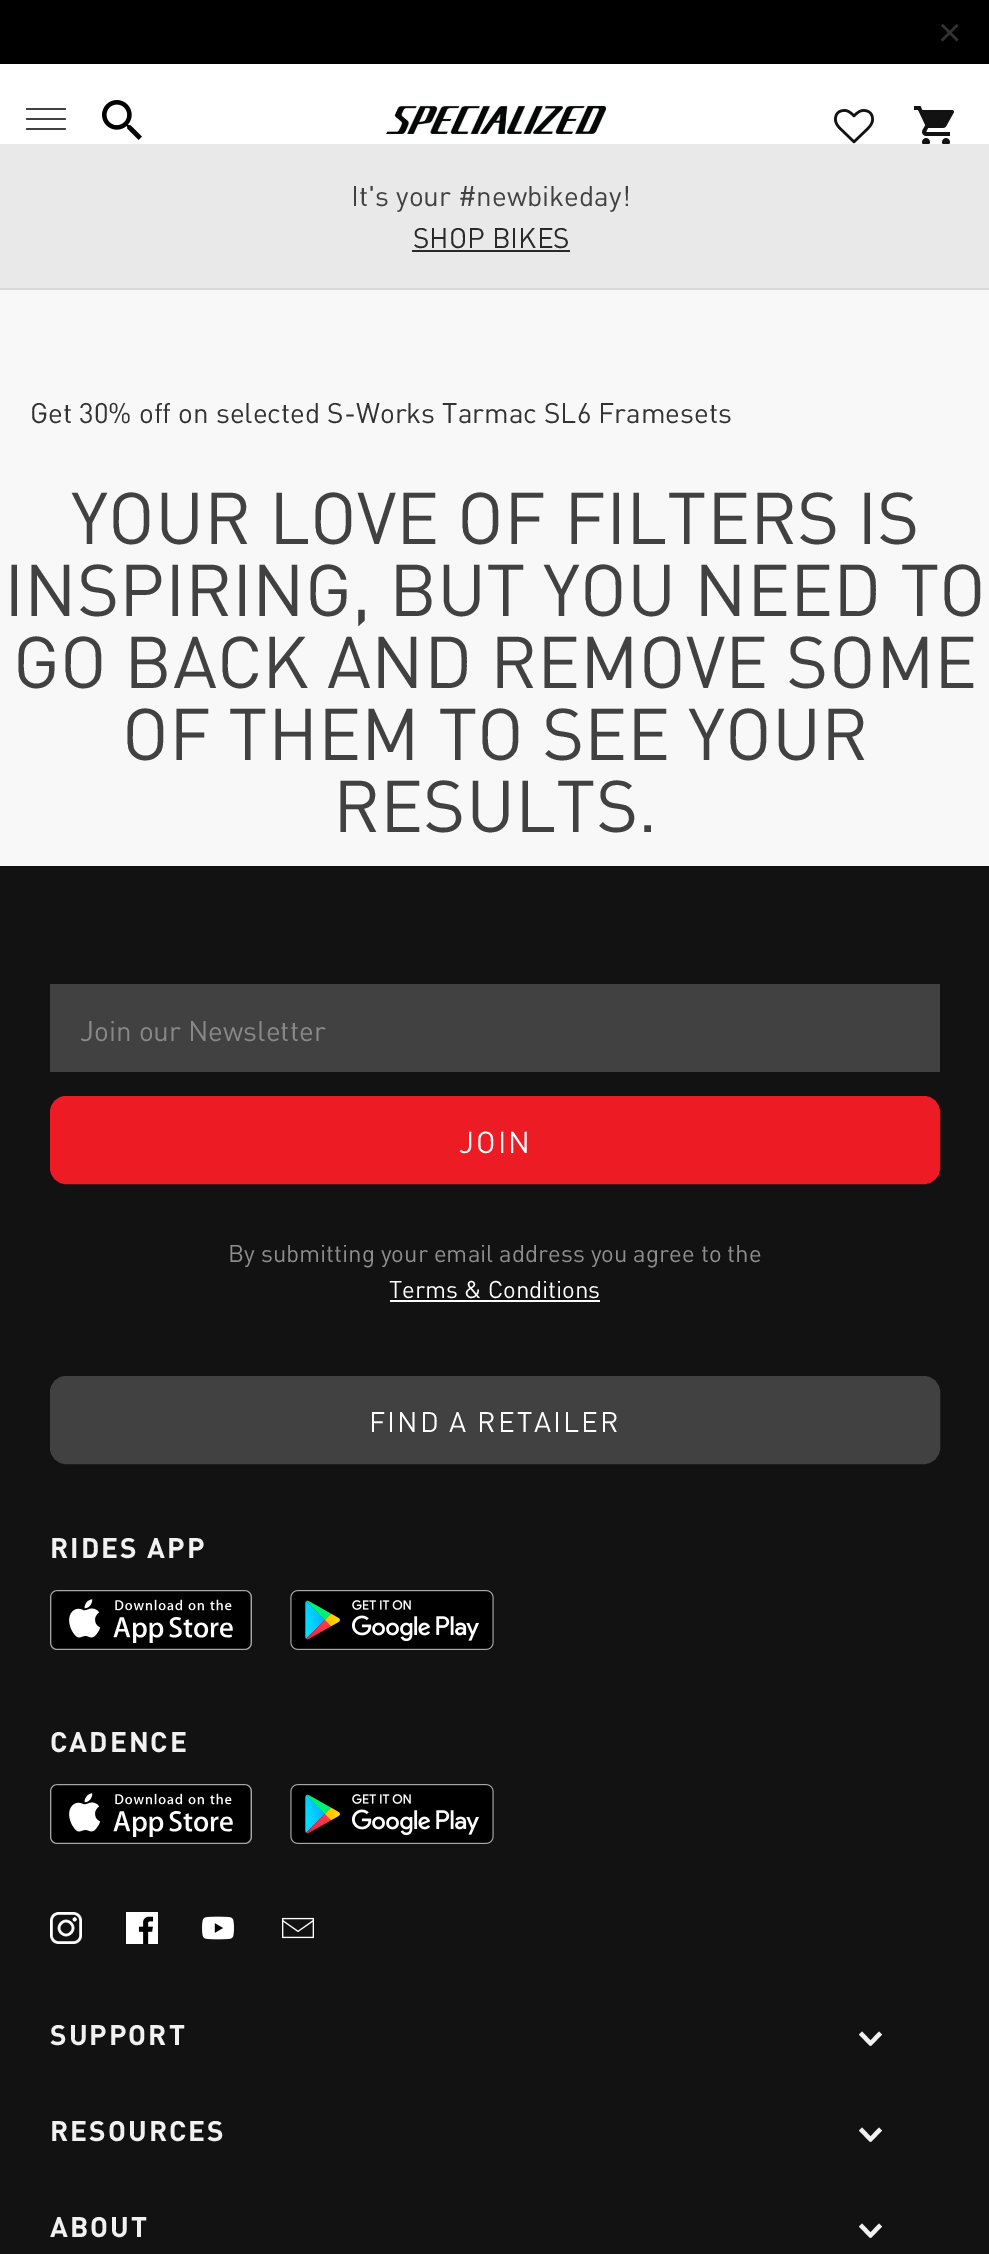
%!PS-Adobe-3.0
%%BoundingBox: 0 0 989 2254
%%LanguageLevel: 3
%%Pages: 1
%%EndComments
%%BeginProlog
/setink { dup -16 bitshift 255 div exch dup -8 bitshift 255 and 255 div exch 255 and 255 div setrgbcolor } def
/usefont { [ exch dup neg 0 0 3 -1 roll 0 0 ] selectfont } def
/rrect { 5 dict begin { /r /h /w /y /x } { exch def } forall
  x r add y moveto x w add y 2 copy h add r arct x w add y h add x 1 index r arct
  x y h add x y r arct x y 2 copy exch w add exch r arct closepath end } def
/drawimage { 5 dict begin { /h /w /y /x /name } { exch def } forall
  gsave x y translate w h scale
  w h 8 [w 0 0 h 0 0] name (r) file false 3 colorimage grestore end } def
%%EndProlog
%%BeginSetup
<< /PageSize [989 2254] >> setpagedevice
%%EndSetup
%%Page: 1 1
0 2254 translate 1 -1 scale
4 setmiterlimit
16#F8F8F8 setink
0 0 989 2254 rectfill
16#000000 setink
0 0 989 64 rectfill
/LiberationSans-Regular 40 usefont
16#333333 setink
938 46 moveto 4 0 (×) ashow
16#FFFFFF setink
0 64 989 80 rectfill
16#414141 setink
26 108 40 2 1 rrect fill
26 118 40 2 1 rrect fill
26 128 40 2 1 rrect fill
(img1.raw) 102 100 40 40 drawimage
(img2.raw) 385 105 221 29 drawimage
(img3.raw) 834 109 40 35 drawimage
(img4.raw) 914 106 40 38 drawimage
16#E9E9E9 setink
0 144 989 144 rectfill
16#D9D9D9 setink
0 288 989 2 rectfill
/DIN-Regular 28 usefont
16#414141 setink
351 206 moveto (It's your #newbikeday!) show
16#292929 setink
413 248 moveto (SHOP BIKES) show
412 250 158 2 rectfill
16#333333 setink
30 423 moveto (Get 30% off on selected S-Works Tarmac SL6 Framesets) show
/DIN-Regular 72 usefont
16#414141 setink
[
    [(YOUR LOVE OF FILTERS IS) 71 544]
    [(INSPIRING, BUT YOU NEED TO) 4 616]
    [(GO BACK AND REMOVE SOME) 13 688]
    [(OF THEM TO SEE YOUR) 122 760]
    [(RESULTS.) 333 832]
] { aload pop moveto show } forall
16#121212 setink
0 866 989 1388 rectfill
16#414141 setink
50 984 890 88 rectfill
/DIN-Regular 28 usefont
16#888888 setink
80 1041 moveto (Join our Newsletter) show
16#ED1C24 setink
51 1097 888 86 15 rrect gsave fill grestore
2 setlinewidth
stroke
/DIN-Regular 30 usefont
16#FFFFFF setink
459 1153 moveto 2 0 (JOIN) ashow
/DIN-Regular 24 usefont
16#8E8E8E setink
228 1262 moveto (By submitting your email address you agree to the) show
16#FFFFFF setink
389 1298 moveto (Terms & Conditions) show
390 1300 210 2 rectfill
16#414141 setink
51 1377 888 86 15 rrect gsave fill grestore
stroke
/DIN-Regular 28 usefont
16#FFFFFF setink
369 1432 moveto 2 0 (FIND A RETAILER) ashow
/DIN-Bold 28 usefont
16#F1F1F1 setink
50 1558 moveto 2 0 (RIDES APP) ashow
(img5.raw) 50 1590 202 60 drawimage
(img6.raw) 290 1590 204 60 drawimage
50 1752 moveto 2 0 (CADENCE) ashow
(img7.raw) 50 1784 202 60 drawimage
(img6.raw) 290 1784 204 60 drawimage
(img8.raw) 50 1912 32 32 drawimage
(img9.raw) 126 1912 32 32 drawimage
(img10.raw) 202 1916 32 24 drawimage
(img11.raw) 282 1917 32 22 drawimage
50 2045 moveto 2 0 (SUPPORT) ashow
859 2034.5 moveto 862 2031.5 lineto 873 2043 lineto 870 2046 lineto closepath fill
879 2031.5 moveto 882 2034.5 lineto 871 2046 lineto 868 2043 lineto closepath fill
50 2141 moveto 2 0 (RESOURCES) ashow
859 2130.5 moveto 862 2127.5 lineto 873 2139 lineto 870 2142 lineto closepath fill
879 2127.5 moveto 882 2130.5 lineto 871 2142 lineto 868 2139 lineto closepath fill
50 2237 moveto 2 0 (ABOUT) ashow
859 2226.5 moveto 862 2223.5 lineto 873 2235 lineto 870 2238 lineto closepath fill
879 2223.5 moveto 882 2226.5 lineto 871 2238 lineto 868 2235 lineto closepath fill
showpage
%%EOF
